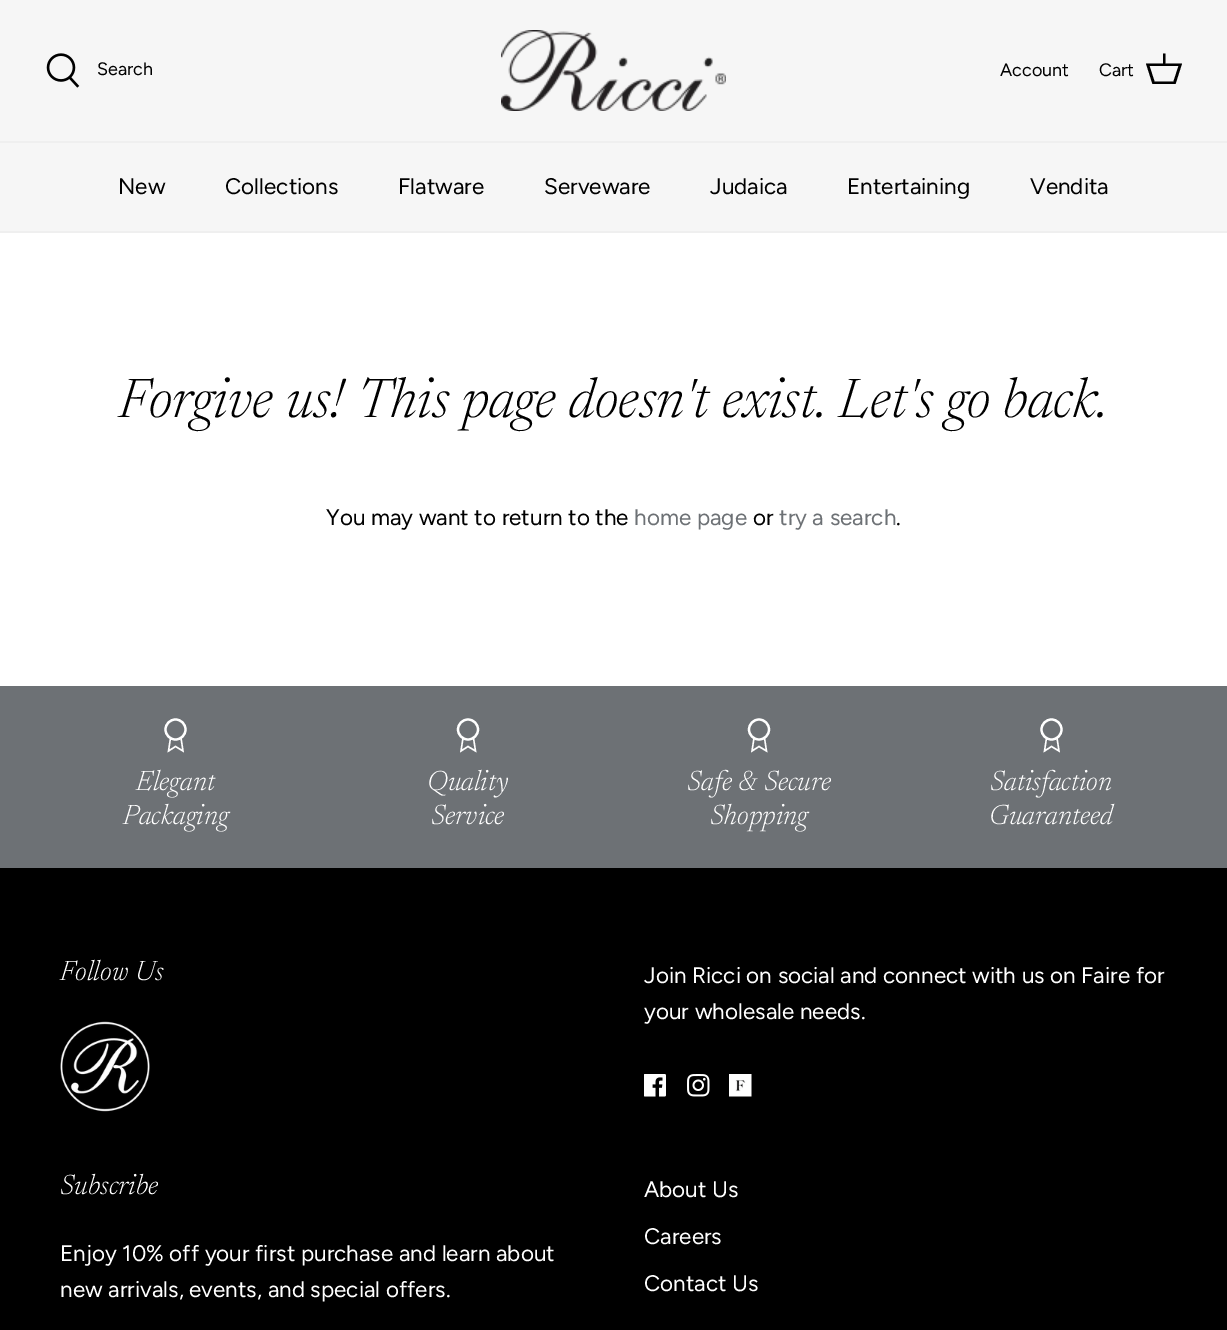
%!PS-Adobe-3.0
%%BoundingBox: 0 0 1227 1330
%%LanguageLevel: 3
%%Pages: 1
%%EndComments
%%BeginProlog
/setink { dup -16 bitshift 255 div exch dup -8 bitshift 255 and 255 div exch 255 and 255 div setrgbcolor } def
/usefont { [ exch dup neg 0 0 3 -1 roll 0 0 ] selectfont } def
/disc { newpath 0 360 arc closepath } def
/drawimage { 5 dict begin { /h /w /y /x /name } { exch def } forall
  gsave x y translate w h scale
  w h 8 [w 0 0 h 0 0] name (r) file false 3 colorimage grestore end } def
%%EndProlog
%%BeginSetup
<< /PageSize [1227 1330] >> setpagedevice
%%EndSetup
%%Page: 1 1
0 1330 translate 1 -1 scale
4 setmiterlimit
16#FFFFFF setink
0 0 1227 1330 rectfill
16#F6F6F6 setink
0 0 1227 141 rectfill
16#EFEFEF setink
0 141 1227 2 rectfill
(img1.raw) 46 53 34 35 drawimage
/Figtree-Regular 18 usefont
16#000000 setink
97 75 moveto (Search) show
(img2.raw) 501 30 225 81 drawimage
1000 76 moveto (Account) show
1099 76 moveto (Cart) show
1163 63.5 moveto 1163 53.5 lineto 1165.5 53.5 lineto 1165.5 63.5 lineto 1182 63.5 lineto 1175.5 84 lineto 1152.5 84 lineto 1146 63.5 lineto closepath 1149.5 66 moveto 1154.5 81.5 lineto 1173.5 81.5 lineto 1178.5 66 lineto closepath fill
16#EFEFEF setink
0 231 1227 2 rectfill
16#F6F6F6 setink
0 143 1227 88 rectfill
/Figtree-Regular 22.5 usefont
16#000000 setink
[
    [(New) 118 194]
    [(Collections) 225 194]
    [(Flatware) 398 194]
    [(Serveware) 544 194]
    [(Judaica) 710 194]
    [(Entertaining) 847 194]
    [(Vendita) 1030 194]
] { aload pop moveto show } forall
/Newsreader-LightItalic 55.5 usefont
119 417 moveto (Forgive us! This page doesn't exist. Let's go back.) show
/Figtree-Regular 22.5 usefont
326 525 moveto (You may want to return to the) show
16#6D7175 setink
634 525 moveto (home page) show
16#000000 setink
753 525 moveto (or) show
16#6D7175 setink
779 525 moveto (try a search) show
16#000000 setink
896 525 moveto (.) show
0 868 1227 462 rectfill
16#6D7175 setink
0 686 1227 182 rectfill
16#FFFFFF setink
2.2 setlinewidth
175.5 729.5 10 disc stroke
1.4 setlinewidth
170.5 738 moveto 168.5 751 lineto 175.5 746.5 lineto 183 751 lineto 181 738 lineto stroke
/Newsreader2-LightItalic 28.5 usefont
136 790 moveto (Elegant) show
123 824 moveto (Packaging) show
2.2 setlinewidth
468 729.5 10 disc stroke
1.4 setlinewidth
463 738 moveto 461 751 lineto 468 746.5 lineto 475.5 751 lineto 473.5 738 lineto stroke
427 790 moveto (Quality) show
431 824 moveto (Service) show
2.2 setlinewidth
759 729.5 10 disc stroke
1.4 setlinewidth
754 738 moveto 752 751 lineto 759 746.5 lineto 766.5 751 lineto 764.5 738 lineto stroke
687 790 moveto (Safe & Secure) show
710 824 moveto (Shopping) show
2.2 setlinewidth
1051.5 729.5 10 disc stroke
1.4 setlinewidth
1046.5 738 moveto 1044.5 751 lineto 1051.5 746.5 lineto 1059 751 lineto 1057 738 lineto stroke
[
    [(Satisfaction) 990 790]
    [(Guaranteed) 989 824]
    [(Follow Us) 60 980]
] { aload pop moveto show } forall
(img3.raw) 60 1021 90 91 drawimage
/Figtree-Regular 22.5 usefont
644 983 moveto (Join Ricci on social and connect with us on Faire for) show
644 1019 moveto (your wholesale needs.) show
(img4.raw) 644 1074 22 23 drawimage
(img5.raw) 687 1074 23 23 drawimage
(img6.raw) 729 1074 23 23 drawimage
/Newsreader2-LightItalic 28.5 usefont
60 1194 moveto (Subscribe) show
/Figtree-Regular 22.5 usefont
[
    [(Enjoy 10% off your first purchase and learn about) 60 1261]
    [(new arrivals, events, and special offers.) 60 1297]
    [(About Us) 644 1197]
    [(Careers) 644 1244]
    [(Contact Us) 644 1291]
] { aload pop moveto show } forall
showpage
%%EOF
